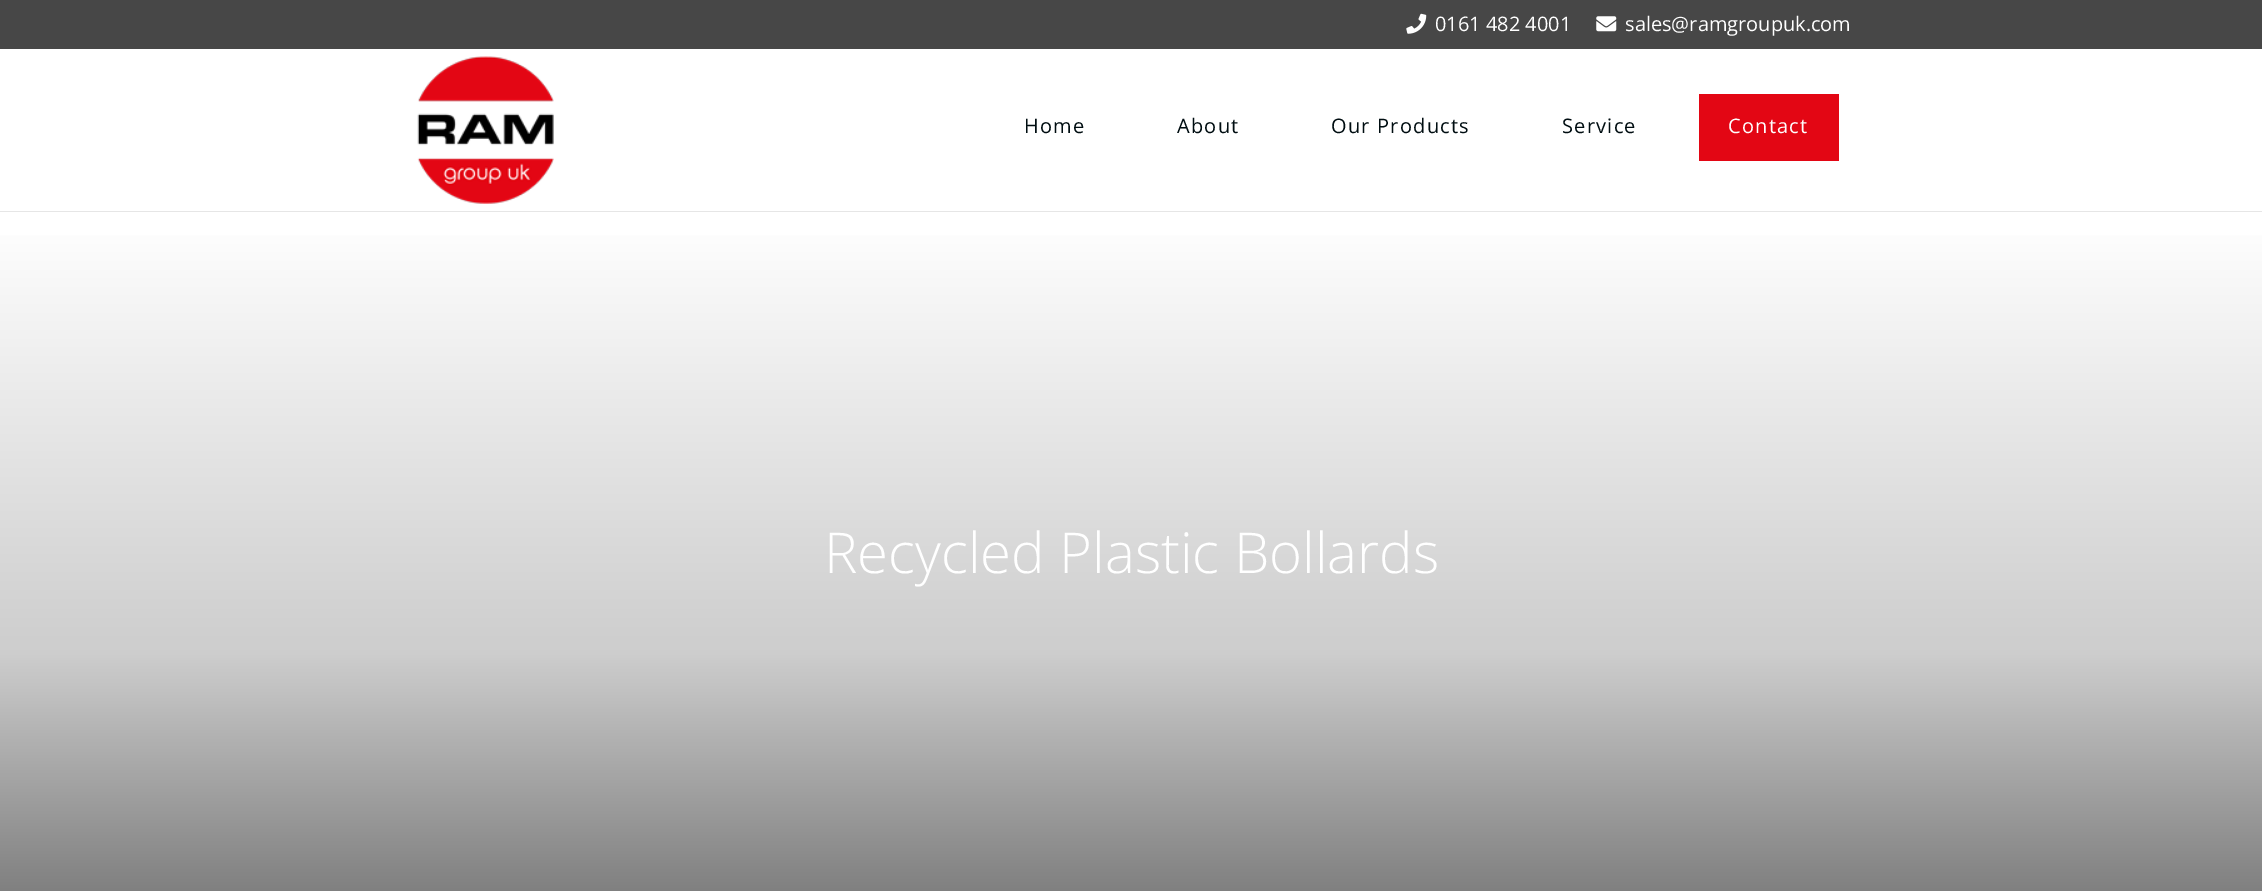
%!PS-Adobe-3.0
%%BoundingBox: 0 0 2262 895
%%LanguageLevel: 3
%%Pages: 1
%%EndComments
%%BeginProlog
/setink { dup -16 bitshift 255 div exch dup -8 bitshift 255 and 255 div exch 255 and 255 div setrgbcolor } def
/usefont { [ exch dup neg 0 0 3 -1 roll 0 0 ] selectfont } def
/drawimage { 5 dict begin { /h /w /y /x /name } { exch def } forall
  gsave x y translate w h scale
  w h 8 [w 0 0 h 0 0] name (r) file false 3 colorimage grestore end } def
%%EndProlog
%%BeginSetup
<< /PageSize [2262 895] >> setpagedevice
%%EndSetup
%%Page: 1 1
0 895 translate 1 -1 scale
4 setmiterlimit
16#FFFFFF setink
0 0 2262 895 rectfill
16#474747 setink
0 0 2262 49 rectfill
(img1.raw) 1406 13 21 21 drawimage
/OpenSans-Regular 20 usefont
16#FFFFFF setink
1435 31 moveto (0161 482 4001) show
(img2.raw) 1596 16 21 16 drawimage
1625 31 moveto (sales@ramgroupuk.com) show
16#E6E6E6 setink
0 211 2262 1 rectfill
(img3.raw) 417 56 137 148 drawimage
16#000D11 setink
1024 133 moveto 1.25 0 (Home) ashow
1177 133 moveto 1.25 0 (About) ashow
1331 133 moveto 1.25 0 (Our Products) ashow
1562 133 moveto 1.25 0 (Service) ashow
16#E30614 setink
1699 94 140 67 rectfill
16#FFFFFF setink
1728 133 moveto 1.25 0 (Contact) ashow
gsave 0 235 moveto 2262 235 lineto 2262 891 lineto 0 891 lineto closepath clip newpath
<< /ShadingType 2 /ColorSpace /DeviceRGB /Coords [1131 891 1131 213] /Extend [true true] /Function << /FunctionType 3 /Domain [0 1] /Functions [<< /FunctionType 2 /Domain [0 1] /C0 [0.502 0.502 0.502] /C1 [0.804 0.804 0.804] /N 1 >> << /FunctionType 2 /Domain [0 1] /C0 [0.804 0.804 0.804] /C1 [1 1 1] /N 1 >>] /Bounds [0.35] /Encode [0 1 0 1] >> >> shfill grestore
/OpenSans-Light 56.25 usefont
824 573 moveto (Recycled Plastic Bollards) show
showpage
%%EOF
